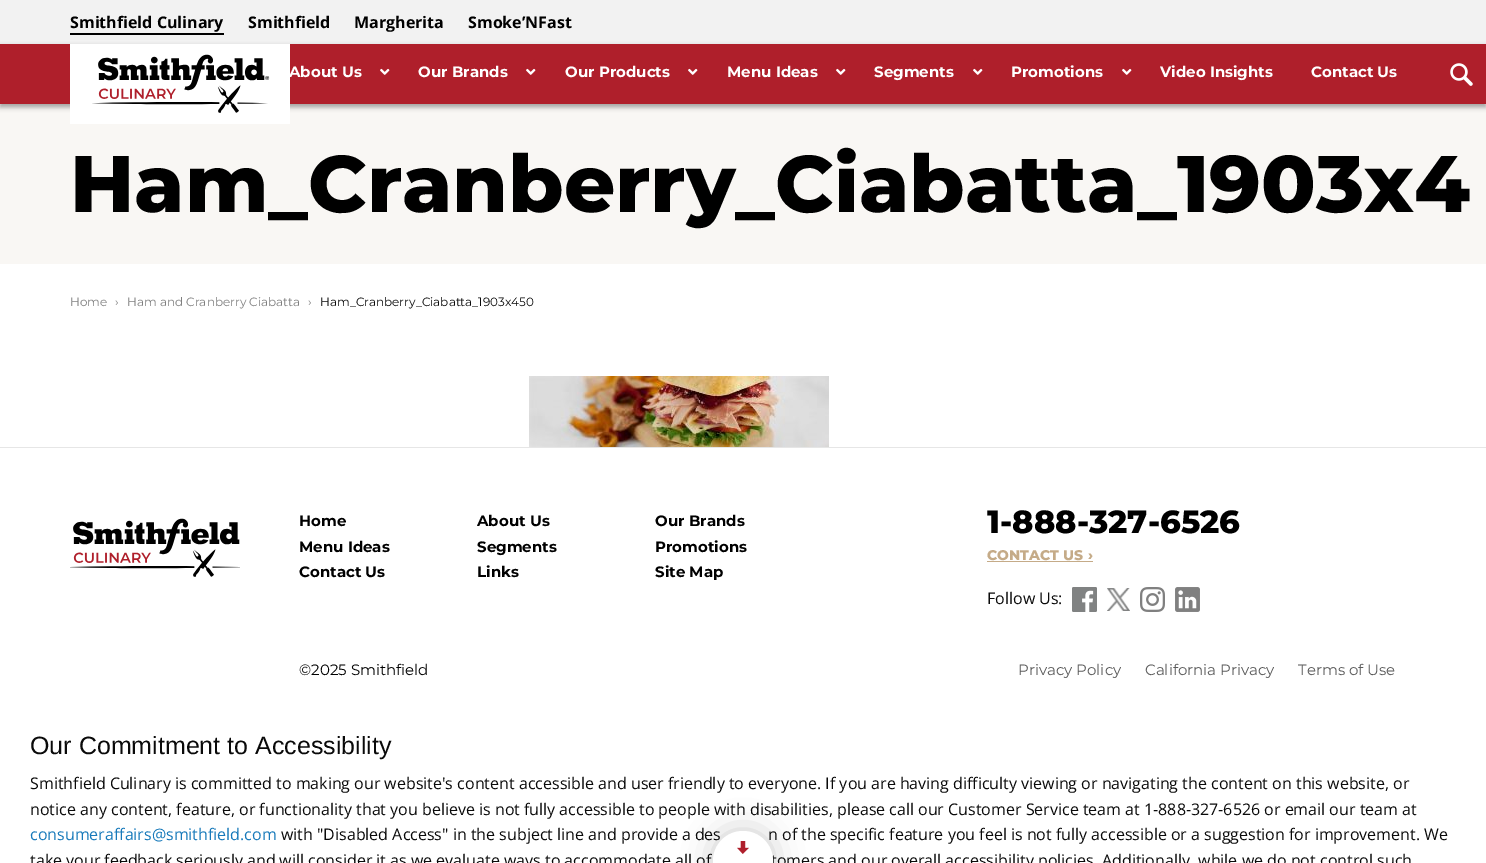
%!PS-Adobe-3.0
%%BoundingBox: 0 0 1486 863
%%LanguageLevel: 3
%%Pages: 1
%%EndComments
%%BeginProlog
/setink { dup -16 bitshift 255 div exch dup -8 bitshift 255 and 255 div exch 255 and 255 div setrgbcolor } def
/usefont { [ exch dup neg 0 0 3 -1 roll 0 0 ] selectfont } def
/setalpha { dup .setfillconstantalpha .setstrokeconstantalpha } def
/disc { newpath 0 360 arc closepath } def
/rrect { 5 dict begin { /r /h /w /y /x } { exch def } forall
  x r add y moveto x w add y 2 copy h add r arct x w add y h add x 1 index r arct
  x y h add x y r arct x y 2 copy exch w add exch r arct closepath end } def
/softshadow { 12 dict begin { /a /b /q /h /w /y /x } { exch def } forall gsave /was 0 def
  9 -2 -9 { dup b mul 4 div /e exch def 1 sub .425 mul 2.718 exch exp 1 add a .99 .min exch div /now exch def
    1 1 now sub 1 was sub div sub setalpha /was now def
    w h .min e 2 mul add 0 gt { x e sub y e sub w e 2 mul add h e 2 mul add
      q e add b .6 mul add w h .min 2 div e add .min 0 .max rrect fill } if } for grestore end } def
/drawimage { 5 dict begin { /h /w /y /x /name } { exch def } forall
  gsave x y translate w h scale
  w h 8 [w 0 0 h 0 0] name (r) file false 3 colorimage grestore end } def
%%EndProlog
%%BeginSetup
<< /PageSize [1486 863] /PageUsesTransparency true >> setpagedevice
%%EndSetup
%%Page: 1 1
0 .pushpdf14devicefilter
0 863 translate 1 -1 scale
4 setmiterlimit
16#FFFFFF setink
0 0 1486 863 rectfill
16#F2F2F2 setink
0 0 1486 44 rectfill
/OpenSans-Bold 16 usefont
16#000000 setink
70 28 moveto (Smithfield Culinary) show
70 33 154 2 rectfill
[
    [(Smithfield) 248 28]
    [(Margherita) 354 28]
    [(Smoke’NFast) 468 28]
] { aload pop moveto show } forall
16#F9F7F4 setink
0 104 1486 160 rectfill
16#000000 setink
0 47 1486 60 0 2.5 0.35 softshadow
16#AF1F2B setink
0 44 1486 60 rectfill
16#FFFFFF setink
70 44 220 80 rectfill
(img1.raw) 92 54 178 59 drawimage
/Montserrat-Bold 15 usefont
289 77 moveto (About Us) show
(img2.raw) 380 68 10 7 drawimage
418 77 moveto (Our Brands) show
(img2.raw) 526 68 10 7 drawimage
565 77 moveto (Our Products) show
(img2.raw) 688 68 10 7 drawimage
727 77 moveto (Menu Ideas) show
(img2.raw) 836 68 10 7 drawimage
874 77 moveto (Segments) show
(img2.raw) 973 68 10 7 drawimage
1011 77 moveto (Promotions) show
(img2.raw) 1122 68 10 7 drawimage
1160 77 moveto (Video Insights) show
1311 77 moveto (Contact Us) show
(img3.raw) 1450 63 23 23 drawimage
/Montserrat-ExtraBold 80 usefont
16#000000 setink
70 212 moveto (Ham_Cranberry_Ciabatta_1903x4) show
/Montserrat-Regular 12 usefont
16#7F7F7F setink
[
    [(Home) 70 306]
    [(›) 115 306]
    [(Ham and Cranberry Ciabatta) 127 306]
    [(›) 308 306]
] { aload pop moveto show } forall
16#0A0A0A setink
320 306 moveto (Ham_Cranberry_Ciabatta_1903x450) show
(img4.raw) 529 376 300 71 drawimage
16#E6E6E6 setink
0 447 1486 1 rectfill
(img5.raw) 70 518 170 59 drawimage
/Montserrat-Bold 15 usefont
16#000000 setink
[
    [(Home) 299 526]
    [(About Us) 477 526]
    [(Our Brands) 655 526]
    [(Menu Ideas) 299 552]
    [(Segments) 477 552]
    [(Promotions) 655 552]
    [(Contact Us) 299 577]
    [(Links) 477 577]
    [(Site Map) 655 577]
] { aload pop moveto show } forall
/Montserrat-ExtraBold 32 usefont
987 533 moveto (1-888-327-6526) show
/Montserrat-ExtraBold 14 usefont
16#C5AB88 setink
987 560 moveto (CONTACT US ›) show
987 561 106 1 rectfill
/OpenSans-Regular 16 usefont
16#0A0A0A setink
987 604 moveto (Follow Us:) show
(img6.raw) 1072 587 25 25 drawimage
(img7.raw) 1107 588 23 23 drawimage
(img8.raw) 1140 587 25 25 drawimage
(img9.raw) 1175 587 25 25 drawimage
/Montserrat-Regular 15 usefont
16#000000 setink
299 675 moveto (©2025 Smithfield) show
16#5B5B5B setink
[
    [(Privacy Policy) 1018 675]
    [(California Privacy) 1145 675]
    [(Terms of Use) 1298 675]
] { aload pop moveto show } forall
/LiberationSans-Regular 25 usefont
16#0A0A0A setink
30 754 moveto (Our Commitment to Accessibility) show
/OpenSans-Regular 16 usefont
30 789 moveto (Smithfield Culinary is committed to making our website's content accessible and user friendly to everyone. If you are having difficulty viewing or navigating the content on this website, or) show
30 815 moveto (notice any content, feature, or functionality that you believe is not fully accessible to people with disabilities, please call our Customer Service team at 1-888-327-6526 or email our team at) show
16#1779BA setink
30 840 moveto (consumeraffairs@smithfield.com) show
16#0A0A0A setink
[
    [(with "Disabled Access" in the subject line and provide a des) 281 840]
    [(n of the specific feature you feel is not fully accessible or a suggestion for improvement. We) 768 840]
    [(take your feedback seriously and will consider it as we evaluate ways to accommodate all of) 30 866]
    [(tomers and our overall accessibility policies. Additionally, while we do not control such) 771 866]
] { aload pop moveto show } forall
16#000000 setink
713 831 60 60 30 15 0.2 softshadow
16#FFFFFF setink
743 861 30 disc fill
(img10.raw) 737 841 12 13 drawimage
.poppdf14devicefilter showpage
%%EOF
